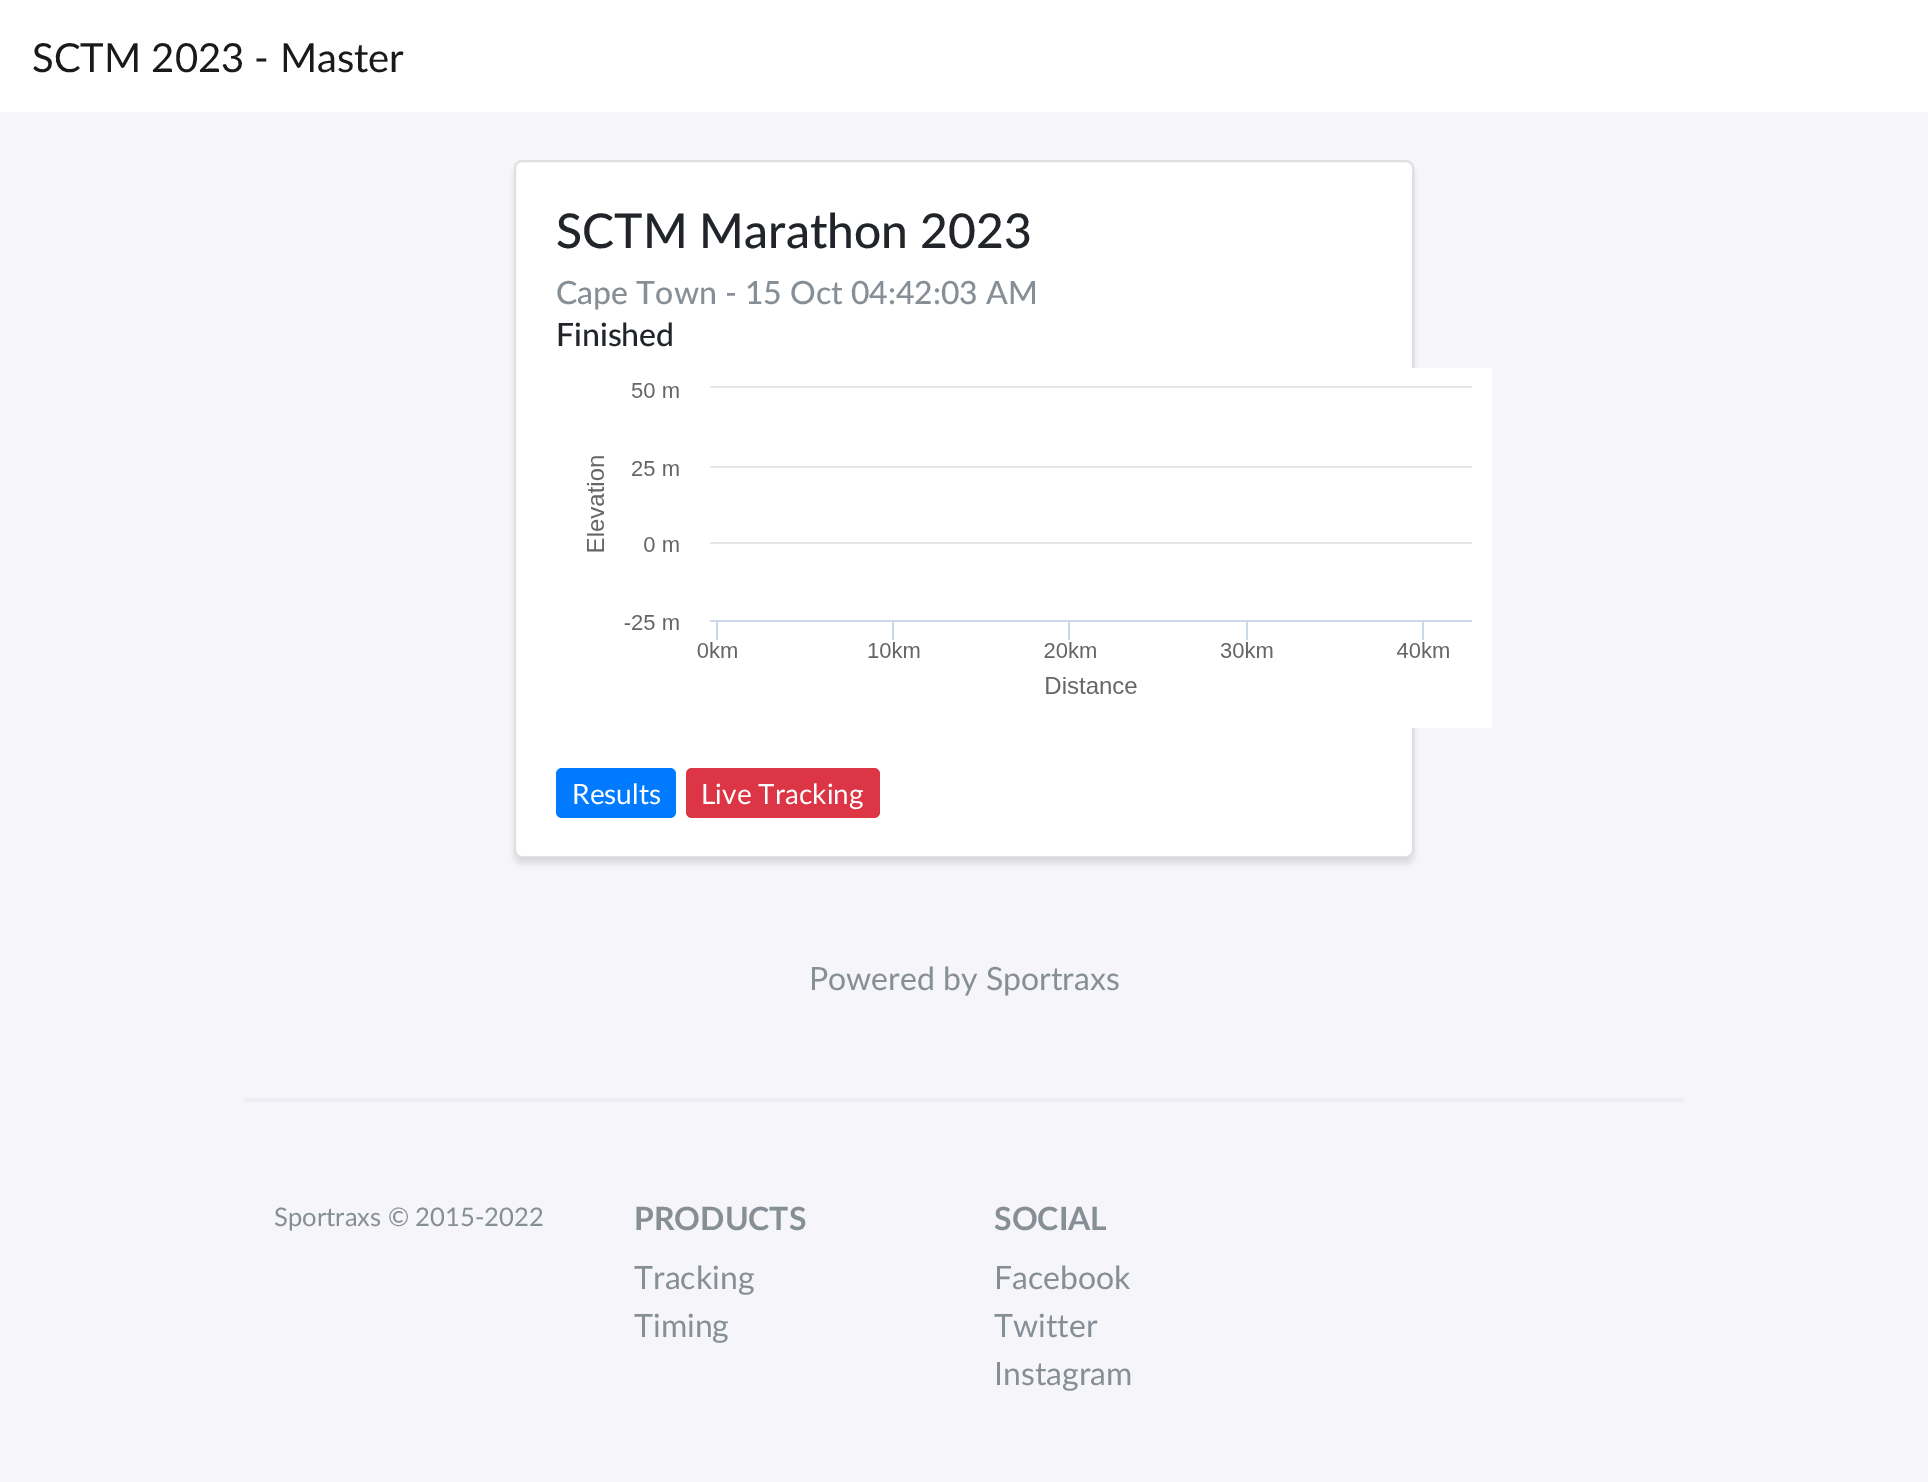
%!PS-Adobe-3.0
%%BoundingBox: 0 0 1928 1482
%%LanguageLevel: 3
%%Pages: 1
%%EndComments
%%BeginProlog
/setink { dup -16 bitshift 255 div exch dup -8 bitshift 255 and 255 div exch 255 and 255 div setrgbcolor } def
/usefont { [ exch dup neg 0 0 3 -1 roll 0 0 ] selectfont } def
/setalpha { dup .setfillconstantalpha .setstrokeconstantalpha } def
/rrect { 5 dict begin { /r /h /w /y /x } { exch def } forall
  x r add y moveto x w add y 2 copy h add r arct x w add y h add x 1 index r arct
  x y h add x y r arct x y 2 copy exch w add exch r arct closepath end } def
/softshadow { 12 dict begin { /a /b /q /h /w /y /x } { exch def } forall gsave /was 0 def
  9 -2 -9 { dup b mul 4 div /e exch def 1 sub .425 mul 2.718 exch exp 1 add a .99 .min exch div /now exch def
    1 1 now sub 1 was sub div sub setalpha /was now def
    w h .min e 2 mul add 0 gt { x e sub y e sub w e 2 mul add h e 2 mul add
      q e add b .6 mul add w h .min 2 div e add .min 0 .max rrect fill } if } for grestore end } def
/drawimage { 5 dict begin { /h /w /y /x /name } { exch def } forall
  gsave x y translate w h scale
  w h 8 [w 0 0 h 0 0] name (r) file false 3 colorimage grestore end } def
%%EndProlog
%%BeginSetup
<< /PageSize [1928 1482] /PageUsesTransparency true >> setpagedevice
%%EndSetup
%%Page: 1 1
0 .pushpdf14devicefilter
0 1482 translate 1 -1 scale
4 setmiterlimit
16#F5F5FA setink
0 0 1928 1482 rectfill
16#FFFFFF setink
0 0 1928 112 rectfill
/Lato-Regular 40 usefont
16#1A1A1A setink
32 72 moveto (SCTM 2023 - Master) show
16#000000 setink
514 166 900 698 8 3 0.1 softshadow
16#FFFFFF setink
514 160 900 698 8 rrect fill
0.12 setalpha
16#000000 setink
2 setlinewidth
515 161 898 696 7 rrect stroke
/Lato-Medium 48 usefont
1 setalpha
16#212529 setink
556 248 moveto (SCTM Marathon 2023) show
/Lato-Medium 32 usefont
16#868E96 setink
556 304 moveto (Cape Town - 15 Oct 04:42:03 AM) show
16#212529 setink
556 346 moveto (Finished) show
(img1.raw) 587 368 905 360 drawimage
16#007BFF setink
556 768 120 50 6 rrect fill
/Lato-Regular 28 usefont
16#FFFFFF setink
572 804 moveto (Results) show
16#DC3545 setink
686 768 194 50 6 rrect fill
16#FFFFFF setink
701 804 moveto (Live Tracking) show
/Lato-Regular 32 usefont
16#868E96 setink
809 990 moveto (Powered by Sportraxs) show
16#ECEEF3 setink
244 1098 1440 4 rectfill
/Lato-Regular 25.6 usefont
16#868E96 setink
274 1226 moveto (Sportraxs © 2015-2022) show
/Lato-Bold 32 usefont
634 1230 moveto (PRODUCTS) show
/Lato-Regular 32 usefont
634 1289 moveto (Tracking) show
634 1337 moveto (Timing) show
/Lato-Bold 32 usefont
994 1230 moveto (SOCIAL) show
/Lato-Regular 32 usefont
[
    [(Facebook) 994 1289]
    [(Twitter) 994 1337]
    [(Instagram) 994 1385]
] { aload pop moveto show } forall
.poppdf14devicefilter showpage
%%EOF
